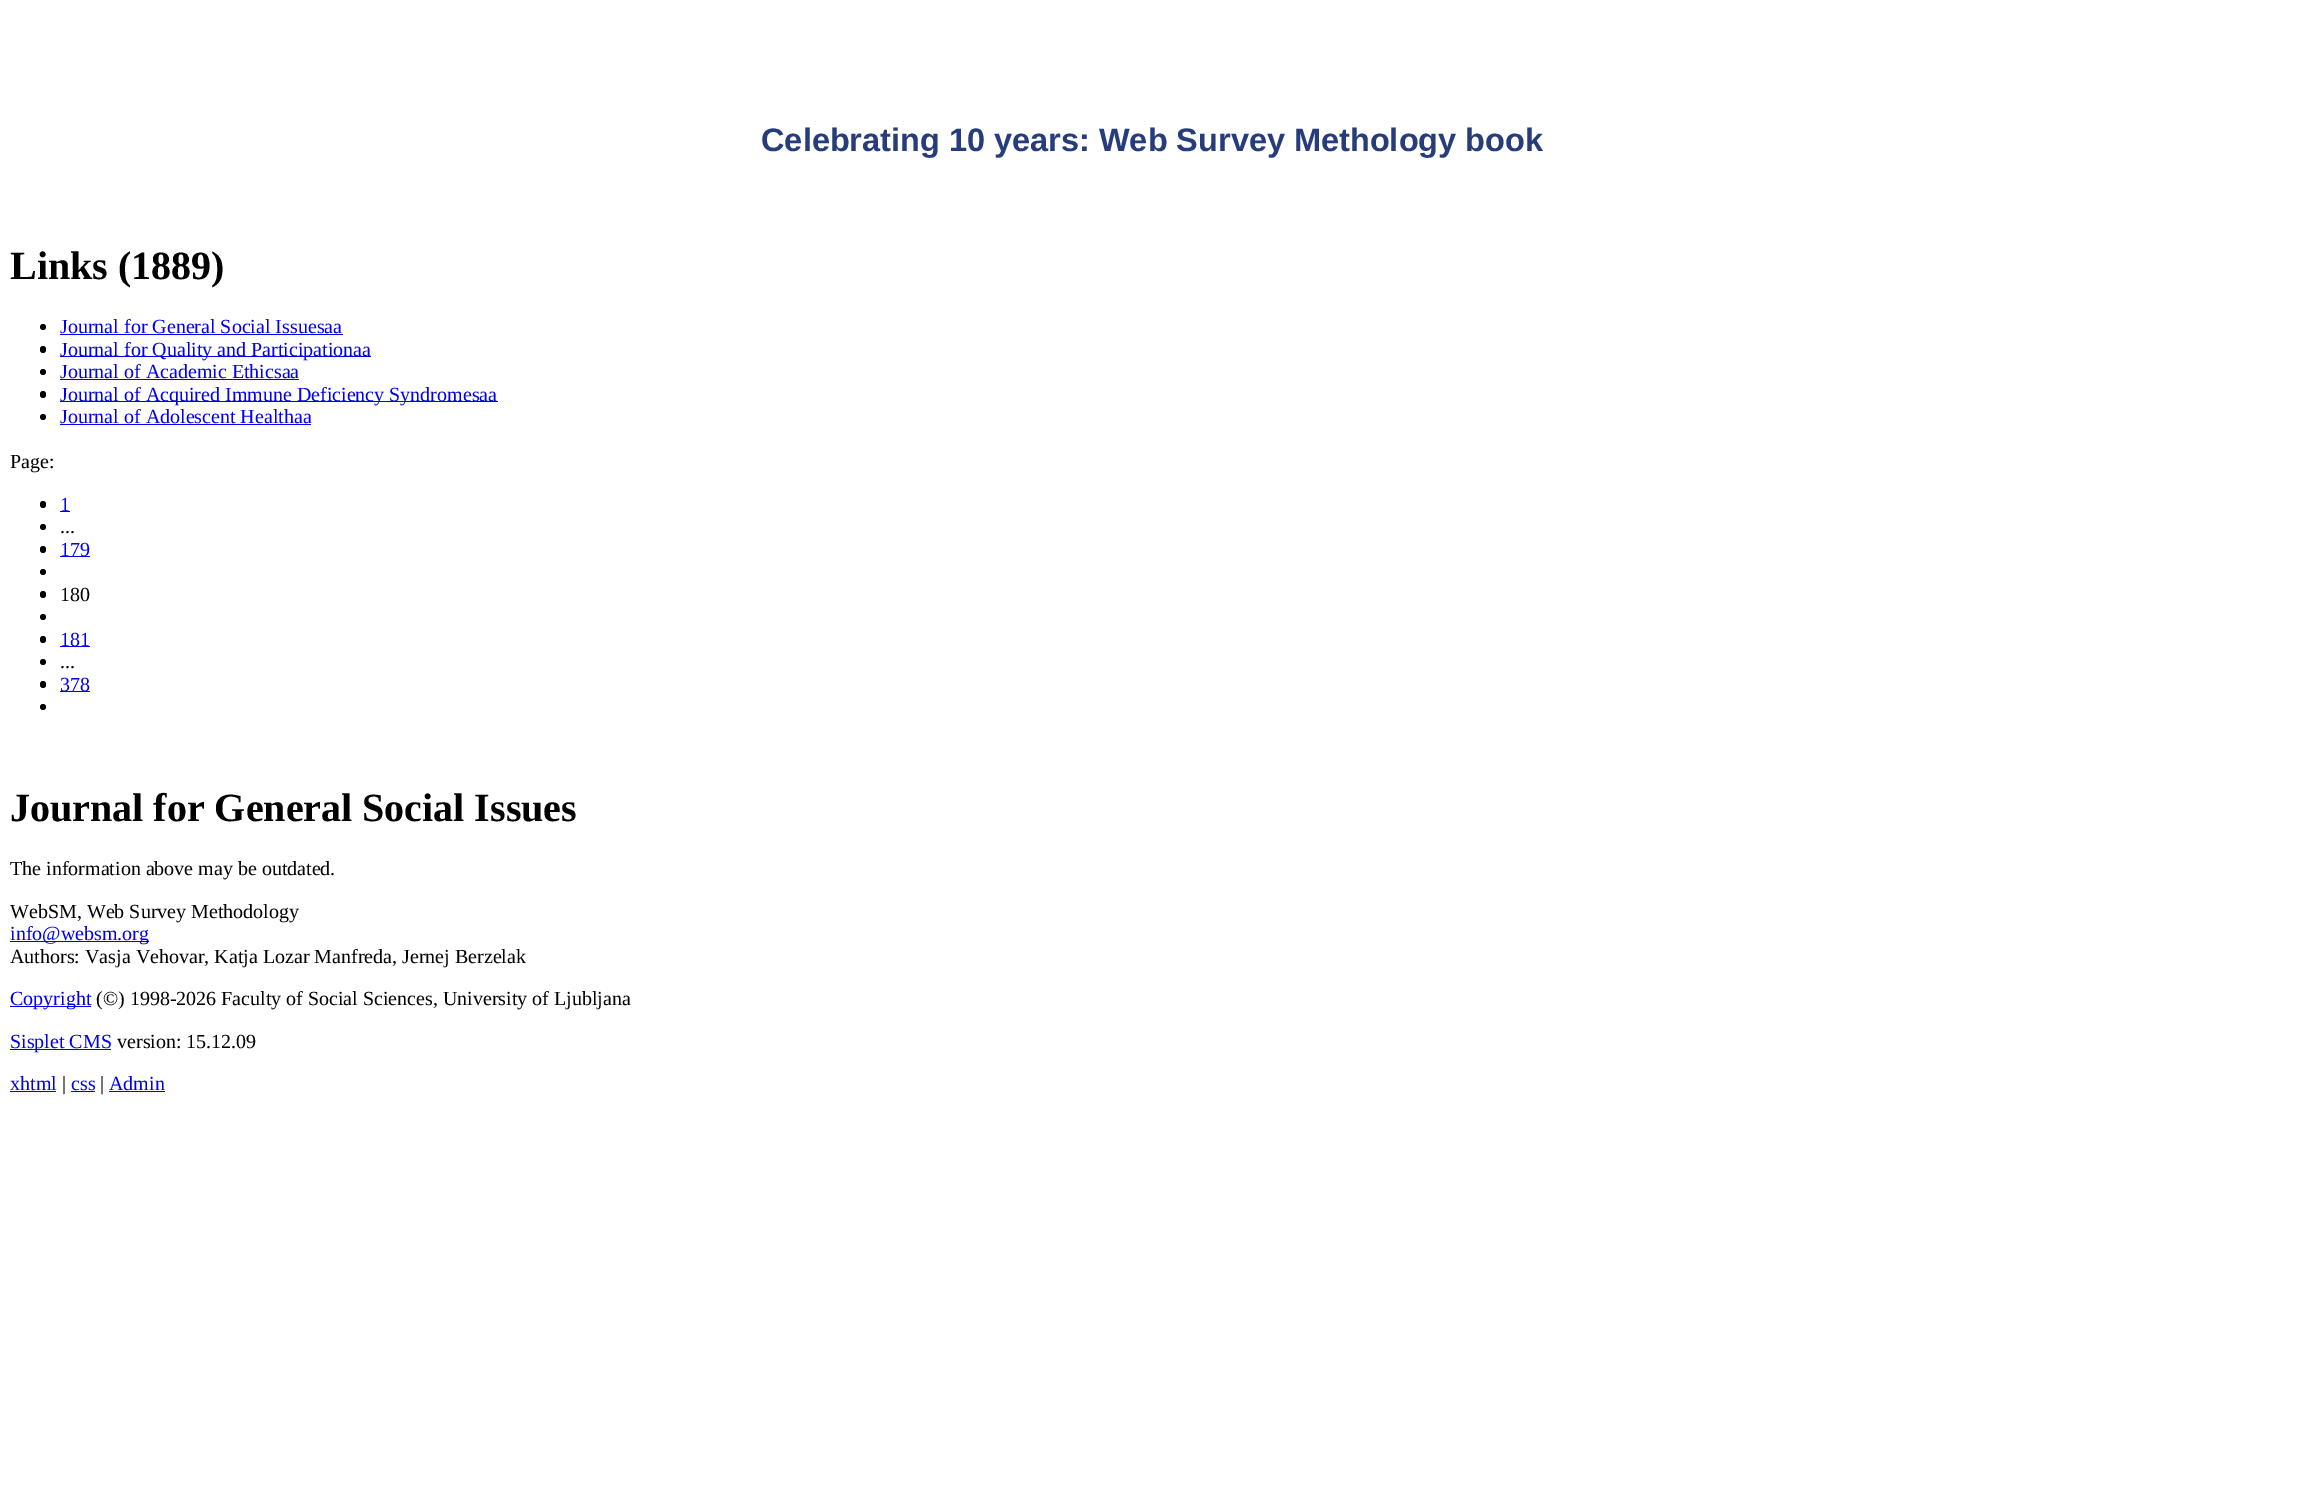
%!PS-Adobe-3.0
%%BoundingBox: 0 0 2303 1485
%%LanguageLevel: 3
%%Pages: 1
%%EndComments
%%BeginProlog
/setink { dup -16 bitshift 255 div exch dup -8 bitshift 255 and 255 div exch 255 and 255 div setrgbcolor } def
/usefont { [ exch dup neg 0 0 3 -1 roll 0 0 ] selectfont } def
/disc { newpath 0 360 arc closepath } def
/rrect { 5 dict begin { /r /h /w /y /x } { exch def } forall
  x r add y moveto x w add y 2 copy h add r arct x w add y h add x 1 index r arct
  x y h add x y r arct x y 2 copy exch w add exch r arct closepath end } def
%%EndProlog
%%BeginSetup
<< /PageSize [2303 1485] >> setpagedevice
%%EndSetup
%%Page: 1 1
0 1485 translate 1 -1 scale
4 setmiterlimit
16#FFFFFF setink
0 0 2303 1485 rectfill
/LiberationSans-Bold 32.5 usefont
16#273C7A setink
761 151 moveto (Celebrating 10 years: Web Survey Methology book) show
/LiberationSerif-Bold 40 usefont
16#000000 setink
10 279 moveto (Links \(1889\)) show
43 327 3 disc fill
/LiberationSerif-Regular 20 usefont
16#0000EE setink
60 333 moveto (Journal for General Social Issuesaa) show
60 334 283 1 rectfill
16#000000 setink
40 346 6 7 3 rrect fill
16#0000EE setink
60 356 311 1 rectfill
60 356 moveto (Journal for Quality and Participationaa) show
16#000000 setink
43 372 3 disc fill
16#0000EE setink
60 378 moveto (Journal of Academic Ethicsaa) show
60 379 239 1 rectfill
16#000000 setink
40 391 6 7 3 rrect fill
16#0000EE setink
60 401 438 1 rectfill
60 401 moveto (Journal of Acquired Immune Deficiency Syndromesaa) show
16#000000 setink
43 417 3 disc fill
16#0000EE setink
60 423 moveto (Journal of Adolescent Healthaa) show
60 424 251 1 rectfill
16#000000 setink
10 468 moveto (Page:) show
40 501 6 7 3 rrect fill
16#0000EE setink
60 511 moveto (1) show
60 511 10 1 rectfill
16#000000 setink
43 527 3 disc fill
60 533 moveto (...) show
40 546 6 7 3 rrect fill
16#0000EE setink
60 556 30 1 rectfill
60 556 moveto (179) show
16#000000 setink
43 572 3 disc fill
40 591 6 7 3 rrect fill
60 601 moveto (180) show
43 617 3 disc fill
40 636 6 7 3 rrect fill
16#0000EE setink
60 646 30 1 rectfill
60 646 moveto (181) show
16#000000 setink
43 662 3 disc fill
60 668 moveto (...) show
40 681 6 7 3 rrect fill
16#0000EE setink
60 691 30 1 rectfill
60 691 moveto (378) show
16#000000 setink
43 707 3 disc fill
/LiberationSerif-Bold 40 usefont
10 821 moveto (Journal for General Social Issues) show
/LiberationSerif-Regular 20 usefont
10 875 moveto (The information above may be outdated.) show
10 918 moveto (WebSM, Web Survey Methodology) show
16#0000EE setink
10 941 139 1 rectfill
10 940 moveto (info@websm.org) show
16#000000 setink
10 963 moveto (Authors: Vasja Vehovar, Katja Lozar Manfreda, Jernej Berzelak) show
16#0000EE setink
10 1006 81 1 rectfill
10 1005 moveto (Copyright) show
16#000000 setink
96 1005 moveto (\(©\) 1998-2026 Faculty of Social Sciences, University of Ljubljana) show
16#0000EE setink
10 1049 101 1 rectfill
10 1048 moveto (Sisplet CMS) show
16#000000 setink
117 1048 moveto (version: 15.12.09) show
16#0000EE setink
10 1090 moveto (xhtml) show
10 1091 46 1 rectfill
16#000000 setink
62 1090 moveto (|) show
16#0000EE setink
71 1090 moveto (css) show
71 1091 24 1 rectfill
16#000000 setink
100 1090 moveto (|) show
16#0000EE setink
109 1090 moveto (Admin) show
109 1091 56 1 rectfill
showpage
%%EOF
